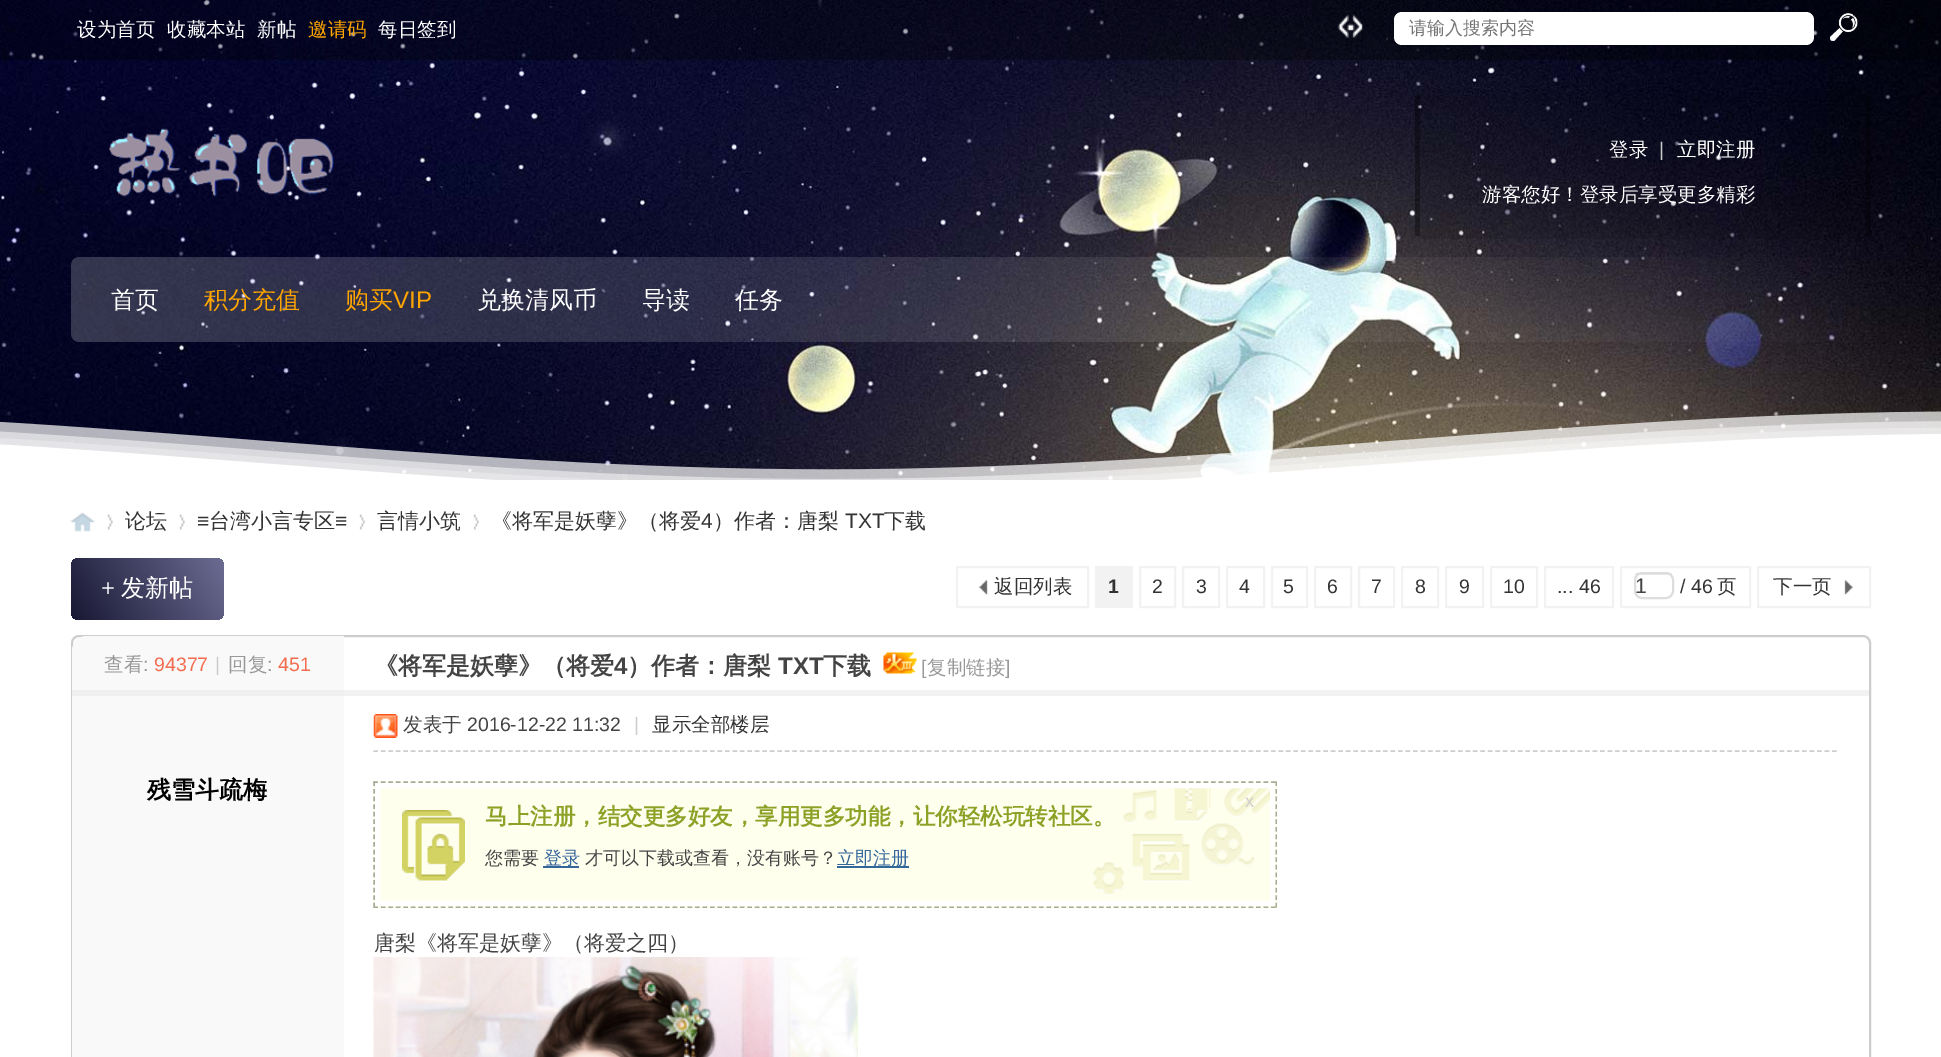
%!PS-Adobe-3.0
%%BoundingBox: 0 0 1941 1057
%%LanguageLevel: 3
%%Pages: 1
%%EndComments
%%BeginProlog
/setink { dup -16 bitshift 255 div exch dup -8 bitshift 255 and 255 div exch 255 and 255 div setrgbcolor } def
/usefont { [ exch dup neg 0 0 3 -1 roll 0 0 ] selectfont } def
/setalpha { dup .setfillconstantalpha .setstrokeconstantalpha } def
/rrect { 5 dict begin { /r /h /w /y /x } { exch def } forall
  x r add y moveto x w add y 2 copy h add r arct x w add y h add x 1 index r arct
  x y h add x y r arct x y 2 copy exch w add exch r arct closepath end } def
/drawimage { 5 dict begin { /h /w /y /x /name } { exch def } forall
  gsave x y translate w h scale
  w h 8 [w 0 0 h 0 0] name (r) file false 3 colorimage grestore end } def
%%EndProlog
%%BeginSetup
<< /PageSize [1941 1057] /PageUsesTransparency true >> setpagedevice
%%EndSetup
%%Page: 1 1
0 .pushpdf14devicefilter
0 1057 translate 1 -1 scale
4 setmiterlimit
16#FFFFFF setink
0 0 1941 1057 rectfill
(img1.raw) 0 0 1941 480 drawimage
0.3 setalpha
16#000000 setink
0 0 1941 60 rectfill
/WenQuanYiZenHei-Medium 19.5 usefont
1 setalpha
16#FFFFFF setink
[
    [(设为首页) 77 36]
    [(收藏本站) 167 36]
    [(新帖) 257 36]
] { aload pop moveto show } forall
16#FFA500 setink
308 36 moveto (邀请码) show
16#FFFFFF setink
378 36 moveto (每日签到) show
(img2.raw) 1337 14 26 24 drawimage
1394 12 420 33 8 rrect fill
/WenQuanYiZenHei-Medium 18 usefont
16#757575 setink
1409 34 moveto (请输入搜索内容) show
(img3.raw) 1830 13 28 28 drawimage
(img4.raw) 109 128 225 69 drawimage
0.1 setalpha
16#000000 setink
1415 90 456 149 8 rrect fill
0.3 setalpha
1866 95 5 141 rectfill
1415 95 5 141 rectfill
/WenQuanYiZenHei-Medium 19.5 usefont
1 setalpha
16#FFFFFF setink
1609 156 moveto (登录) show
/LiberationSans-Regular 19.5 usefont
16#CCCCCC setink
1659 156 moveto (|) show
/WenQuanYiZenHei-Medium 19.5 usefont
16#FFFFFF setink
1677 156 moveto (立即注册) show
1482 201 moveto (游客您好！登录后享受更多精彩) show
/WenQuanYiZenHei-Medium 24 usefont
111 308 moveto (首页) show
16#FFA500 setink
204 308 moveto (积分充值) show
345 308 moveto (购买) show
/LiberationSans-Regular 24 usefont
393 308 moveto (VIP) show
/WenQuanYiZenHei-Medium 24 usefont
16#FFFFFF setink
[
    [(兑换清风币) 477 308]
    [(导读) 642 308]
    [(任务) 735 308]
] { aload pop moveto show } forall
(img5.raw) 0 411 1941 69 drawimage
(img6.raw) 70 512 25 20 drawimage
(img7.raw) 107 514 6 16 drawimage
/WenQuanYiZenHei-Medium 21 usefont
16#333333 setink
125 528 moveto (论坛) show
(img7.raw) 179 514 6 16 drawimage
/LiberationSans-Regular 21 usefont
197 528 moveto (≡) show
/WenQuanYiZenHei-Medium 21 usefont
209 528 moveto (台湾小言专区) show
/LiberationSans-Regular 21 usefont
335 528 moveto (≡) show
(img8.raw) 359 514 6 16 drawimage
/WenQuanYiZenHei-Medium 21 usefont
377 528 moveto (言情小筑) show
(img8.raw) 473 514 6 16 drawimage
491 528 moveto (《将军是妖孽》（将爱) show
/LiberationSans-Regular 21 usefont
701 528 moveto (4) show
/WenQuanYiZenHei-Medium 21 usefont
713 528 moveto (）作者：唐梨) show
/LiberationSans-Regular 21 usefont
845 528 moveto (TXT) show
/WenQuanYiZenHei-Medium 21 usefont
884 528 moveto (下载) show
gsave 71 558 153 62 8 rrect clip newpath
<< /ShadingType 2 /ColorSpace /DeviceRGB /Coords [76 630 218 548] /Extend [true true] /Function << /FunctionType 2 /Domain [0 1] /C0 [0.094 0.094 0.204] /C1 [0.424 0.42 0.573] /N 1 >> >> shfill grestore
/LiberationSans-Regular 24 usefont
16#FFFFFF setink
101 596 moveto (+) show
/WenQuanYiZenHei-Medium 24 usefont
121 596 moveto (发新帖) show
(img9.raw) 979 580 9 15 drawimage
16#F2F2F2 setink
2 setlinewidth
957 567 131 40 rectstroke
/WenQuanYiZenHei-Medium 19.5 usefont
16#333333 setink
994 593 moveto (返回列表) show
16#F2F2F2 setink
1095 566 38 42 rectfill
/LiberationSans-Bold 19.5 usefont
16#333333 setink
1108 593 moveto (1) show
16#F2F2F2 setink
1140 567 35 40 rectstroke
/LiberationSans-Regular 19.5 usefont
16#333333 setink
1152 593 moveto (2) show
16#F2F2F2 setink
1183 567 36 40 rectstroke
16#333333 setink
1196 593 moveto (3) show
16#F2F2F2 setink
1227 567 37 40 rectstroke
16#333333 setink
1239 593 moveto (4) show
16#F2F2F2 setink
1272 567 35 40 rectstroke
16#333333 setink
1283 593 moveto (5) show
16#F2F2F2 setink
1315 567 36 40 rectstroke
16#333333 setink
1327 593 moveto (6) show
16#F2F2F2 setink
1359 567 35 40 rectstroke
16#333333 setink
1371 593 moveto (7) show
16#F2F2F2 setink
1402 567 36 40 rectstroke
16#333333 setink
1415 593 moveto (8) show
16#F2F2F2 setink
1446 567 37 40 rectstroke
16#333333 setink
1459 593 moveto (9) show
16#F2F2F2 setink
1491 567 46 40 rectstroke
16#333333 setink
1503 593 moveto (10) show
16#F2F2F2 setink
1545 567 68 40 rectstroke
16#333333 setink
1557 593 moveto (... 46) show
16#F2F2F2 setink
1621 567 129 40 rectstroke
(img10.raw) 1635 573 38 2 drawimage
16#DDDDDD setink
1635 573 38 25 7 rrect stroke
/LiberationSans-Regular 21 usefont
16#444444 setink
1635 593 moveto (1) show
/LiberationSans-Regular 19.5 usefont
16#333333 setink
1680 593 moveto (/ 46) show
/WenQuanYiZenHei-Medium 19.5 usefont
1717 593 moveto (页) show
(img11.raw) 1844 580 9 15 drawimage
16#F2F2F2 setink
1758 567 112 40 rectstroke
16#333333 setink
1773 593 moveto (下一页) show
16#CDCDCD setink
72 636 1798 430 7 rrect stroke
16#F9F9F9 setink
87 636 moveto 344 636 lineto 344 690 lineto 72 690 lineto 72 651 lineto 72 642.5 78.5 636 87 636 curveto closepath fill
16#999999 setink
104 671 moveto (查看) show
/LiberationSans-Regular 19.5 usefont
143 671 moveto (:) show
16#F26C4F setink
154 671 moveto (94377) show
16#CCCCCC setink
215 671 moveto (|) show
/WenQuanYiZenHei-Medium 19.5 usefont
16#999999 setink
228 671 moveto (回复) show
/LiberationSans-Regular 19.5 usefont
267 671 moveto (:) show
16#F26C4F setink
278 671 moveto (451) show
/WenQuanYiZenHei-Bold 24 usefont
16#444444 setink
374 674 moveto (《将军是妖孽》（将爱) show
/LiberationSans-Bold 24 usefont
614 674 moveto (4) show
/WenQuanYiZenHei-Bold 24 usefont
627 674 moveto (）作者：唐梨) show
/LiberationSans-Bold 24 usefont
778 674 moveto (TXT) show
/WenQuanYiZenHei-Bold 24 usefont
823 674 moveto (下载) show
(img12.raw) 883 652 34 22 drawimage
/LiberationSans-Regular 19.5 usefont
16#999999 setink
921 674 moveto ([) show
/WenQuanYiZenHei-Medium 19.5 usefont
927 674 moveto (复制链接) show
/LiberationSans-Regular 19.5 usefont
1005 674 moveto (]) show
[
    [72 690 272 6 16#EFEFEF]
    [344 690 1525 6 16#F2F2F2]
    [72 696 272 361 16#F9F9F9]
] { aload pop setink rectfill } forall
/WenQuanYiZenHei-Bold 24 usefont
16#000000 setink
147 798 moveto (残雪斗疏梅) show
16#CDCDCD setink
1.5 setlinewidth
[4.5 2.98] 0 setdash
373.5 751 moveto 1839 751 lineto stroke
(img13.raw) 373 714 25 24 drawimage
/WenQuanYiZenHei-Medium 19.5 usefont
16#444444 setink
403 731 moveto (发表于) show
/LiberationSans-Regular 19.5 usefont
467 731 moveto (2016-12-22 11:32) show
16#CCCCCC setink
634 731 moveto (|) show
/WenQuanYiZenHei-Medium 19.5 usefont
16#333333 setink
652 731 moveto (显示全部楼层) show
16#FFFFEE setink
374 782 903 126 rectfill
(img14.raw) 1093 788 177 108 drawimage
16#AAAA92 setink
373.5 782 moveto 1276.5 782 lineto stroke
[4.5 3.09] 0 setdash
1276 781.5 moveto 1276 907.5 lineto stroke
[4.5 2.98] 0 setdash
373.5 907 moveto 1276.5 907 lineto stroke
[4.5 3.09] 0 setdash
374 781.5 moveto 374 907.5 lineto stroke
(img15.raw) 402 810 63 72 drawimage
16#FFFFFF setink
5 setlinewidth
[] 0 setdash
377.5 785.5 895 118 rectstroke
/LiberationSans-Regular 18 usefont
16#CCCCCC setink
1245 807 moveto (x) show
/WenQuanYiZenHei-Bold 22.5 usefont
16#8CA226 setink
485 824 moveto (马上注册，结交更多好友，享用更多功能，让你轻松玩转社区。) show
/WenQuanYiZenHei-Medium 18 usefont
16#444444 setink
485 864 moveto (您需要) show
16#336699 setink
543 866 36 2 rectfill
544 864 moveto (登录) show
16#444444 setink
585 864 moveto (才可以下载或查看，没有账号？) show
16#336699 setink
837 866 72 2 rectfill
837 864 moveto (立即注册) show
/WenQuanYiZenHei-Medium 21 usefont
16#444444 setink
374 950 moveto (唐梨《将军是妖孽》（将爱之四）) show
(img16.raw) 373 957 485 100 drawimage
.poppdf14devicefilter showpage
%%EOF
